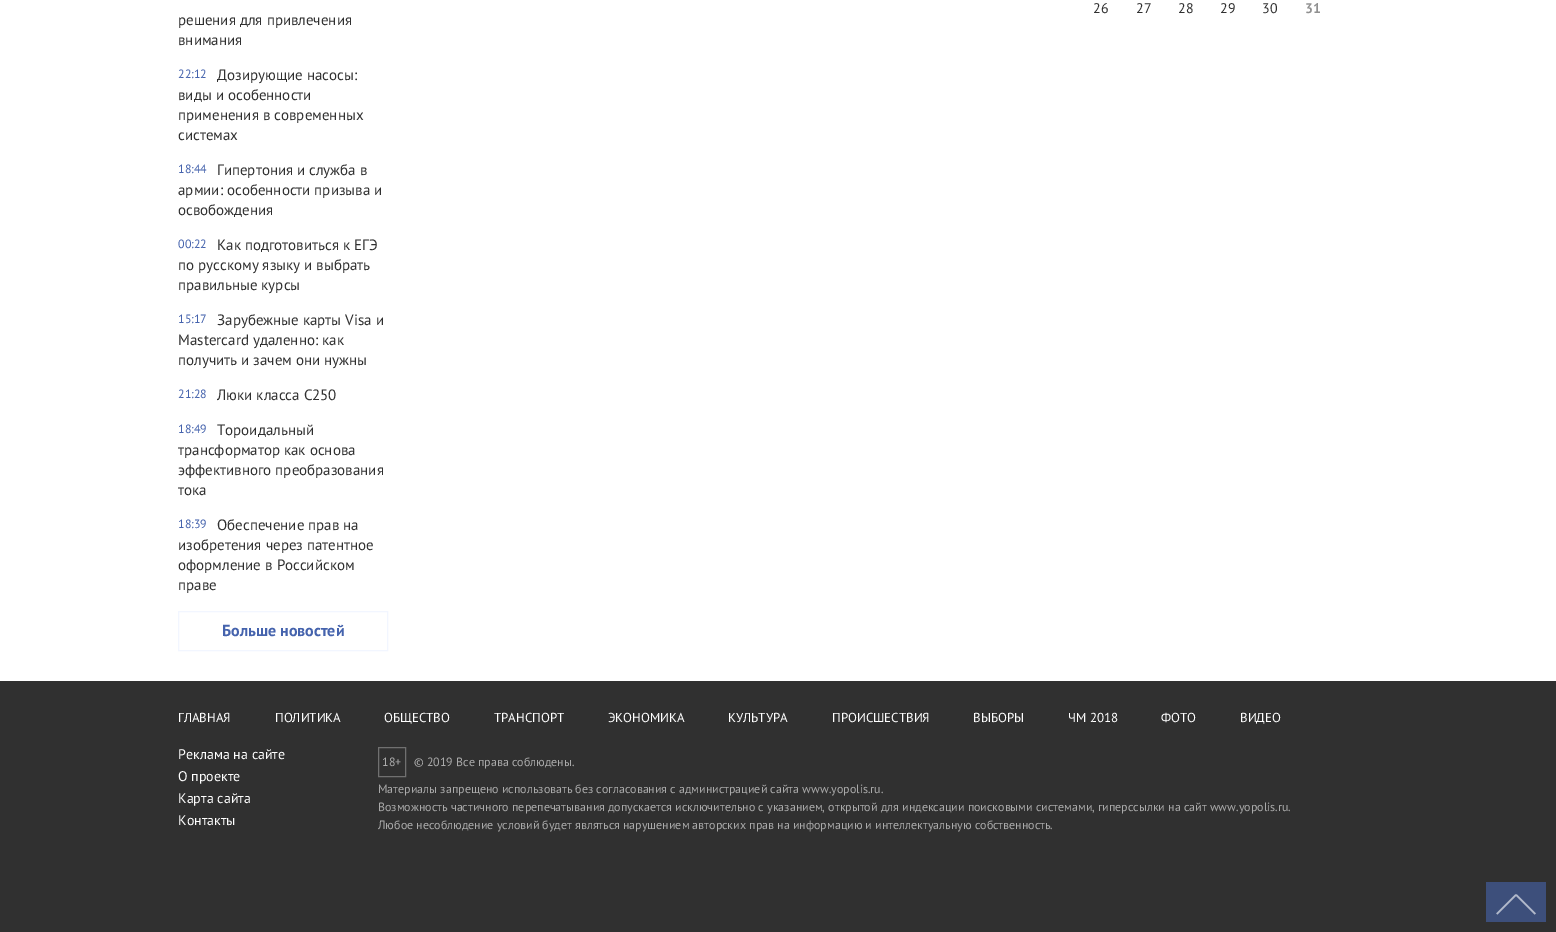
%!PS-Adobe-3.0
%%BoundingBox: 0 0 1556 932
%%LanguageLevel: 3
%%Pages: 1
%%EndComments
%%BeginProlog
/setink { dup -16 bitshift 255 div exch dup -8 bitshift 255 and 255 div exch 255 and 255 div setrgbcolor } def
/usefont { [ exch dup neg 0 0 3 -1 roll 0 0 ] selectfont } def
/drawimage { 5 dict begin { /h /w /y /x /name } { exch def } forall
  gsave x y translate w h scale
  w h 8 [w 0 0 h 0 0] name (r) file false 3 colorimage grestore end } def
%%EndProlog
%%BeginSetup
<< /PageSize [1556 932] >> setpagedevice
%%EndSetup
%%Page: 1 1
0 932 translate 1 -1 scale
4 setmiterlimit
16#FFFFFF setink
0 0 1556 932 rectfill
/PTSans-Regular 14 usefont
16#303030 setink
[
    [(26) 1093 13]
    [(27) 1136 13]
    [(28) 1178 13]
    [(29) 1220 13]
    [(30) 1262 13]
] { aload pop moveto show } forall
/PTSans-Bold 14 usefont
16#909090 setink
1305 13 moveto (31) show
/PTSans-Regular 15 usefont
16#303030 setink
178 25 moveto (решения для привлечения) show
178 45 moveto (внимания) show
/PTSans-Regular 12 usefont
16#4563AD setink
178 78 moveto (22:12) show
/PTSans-Regular 15 usefont
16#303030 setink
[
    [(Дозирующие насосы:) 217 80]
    [(виды и особенности) 178 100]
    [(применения в современных) 178 120]
    [(системах) 178 140]
] { aload pop moveto show } forall
/PTSans-Regular 12 usefont
16#4563AD setink
178 173 moveto (18:44) show
/PTSans-Regular 15 usefont
16#303030 setink
[
    [(Гипертония и служба в) 217 175]
    [(армии: особенности призыва и) 178 195]
    [(освобождения) 178 215]
] { aload pop moveto show } forall
/PTSans-Regular 12 usefont
16#4563AD setink
178 248 moveto (00:22) show
/PTSans-Regular 15 usefont
16#303030 setink
[
    [(Как подготовиться к ЕГЭ) 217 250]
    [(по русскому языку и выбрать) 178 270]
    [(правильные курсы) 178 290]
] { aload pop moveto show } forall
/PTSans-Regular 12 usefont
16#4563AD setink
178 323 moveto (15:17) show
/PTSans-Regular 15 usefont
16#303030 setink
[
    [(Зарубежные карты Visa и) 217 325]
    [(Mastercard удаленно: как) 178 345]
    [(получить и зачем они нужны) 178 365]
] { aload pop moveto show } forall
/PTSans-Regular 12 usefont
16#4563AD setink
178 398 moveto (21:28) show
/PTSans-Regular 15 usefont
16#303030 setink
217 400 moveto (Люки класса C250) show
/PTSans-Regular 12 usefont
16#4563AD setink
178 433 moveto (18:49) show
/PTSans-Regular 15 usefont
16#303030 setink
[
    [(Тороидальный) 217 435]
    [(трансформатор как основа) 178 455]
    [(эффективного преобразования) 178 475]
    [(тока) 178 495]
] { aload pop moveto show } forall
/PTSans-Regular 12 usefont
16#4563AD setink
178 528 moveto (18:39) show
/PTSans-Regular 15 usefont
16#303030 setink
[
    [(Обеспечение прав на) 217 530]
    [(изобретения через патентное) 178 550]
    [(оформление в Российском) 178 570]
    [(праве) 178 590]
] { aload pop moveto show } forall
16#F2F6FF setink
178.5 611.5 209 39 rectstroke
/PTSans-Bold 16 usefont
16#4563AD setink
222 636 moveto (Больше новостей) show
16#303030 setink
0 681 1556 251 rectfill
/PTSans-Regular 13 usefont
16#FFFFFF setink
[
    [(ГЛАВНАЯ) 178 722]
    [(ПОЛИТИКА) 275 722]
    [(ОБЩЕСТВО) 384 722]
    [(ТРАНСПОРТ) 494 722]
    [(ЭКОНОМИКА) 608 722]
    [(КУЛЬТУРА) 728 722]
    [(ПРОИСШЕСТВИЯ) 832 722]
    [(ВЫБОРЫ) 973 722]
    [(ЧМ 2018) 1068 722]
    [(ФОТО) 1161 722]
    [(ВИДЕО) 1240 722]
] { aload pop moveto show } forall
/PTSans-Regular 14 usefont
[
    [(Реклама на сайте) 178 759]
    [(О проекте) 178 781]
    [(Карта сайта) 178 803]
    [(Контакты) 178 825]
] { aload pop moveto show } forall
16#707070 setink
378.5 747.5 27 29 rectstroke
/PTSans-Regular 12 usefont
16#AAAAAA setink
[
    [(18+) 382 766]
    [(© 2019 Все права соблюдены.) 414 766]
    [(Материалы запрещено использовать без согласования с администрацией сайта www.yopolis.ru.) 378 793]
    [(Возможность частичного перепечатывания допускается исключительно с указанием, открытой для индексации поисковыми системами, гиперссылки на сайт www.yopolis.ru.) 378 811]
    [(Любое несоблюдение условий будет являться нарушением авторских прав на информацию и интеллектуальную собственность.) 378 829]
] { aload pop moveto show } forall
16#3D4F7B setink
1486 882 60 40 rectfill
(img1.raw) 1496 894 40 21 drawimage
showpage
%%EOF
